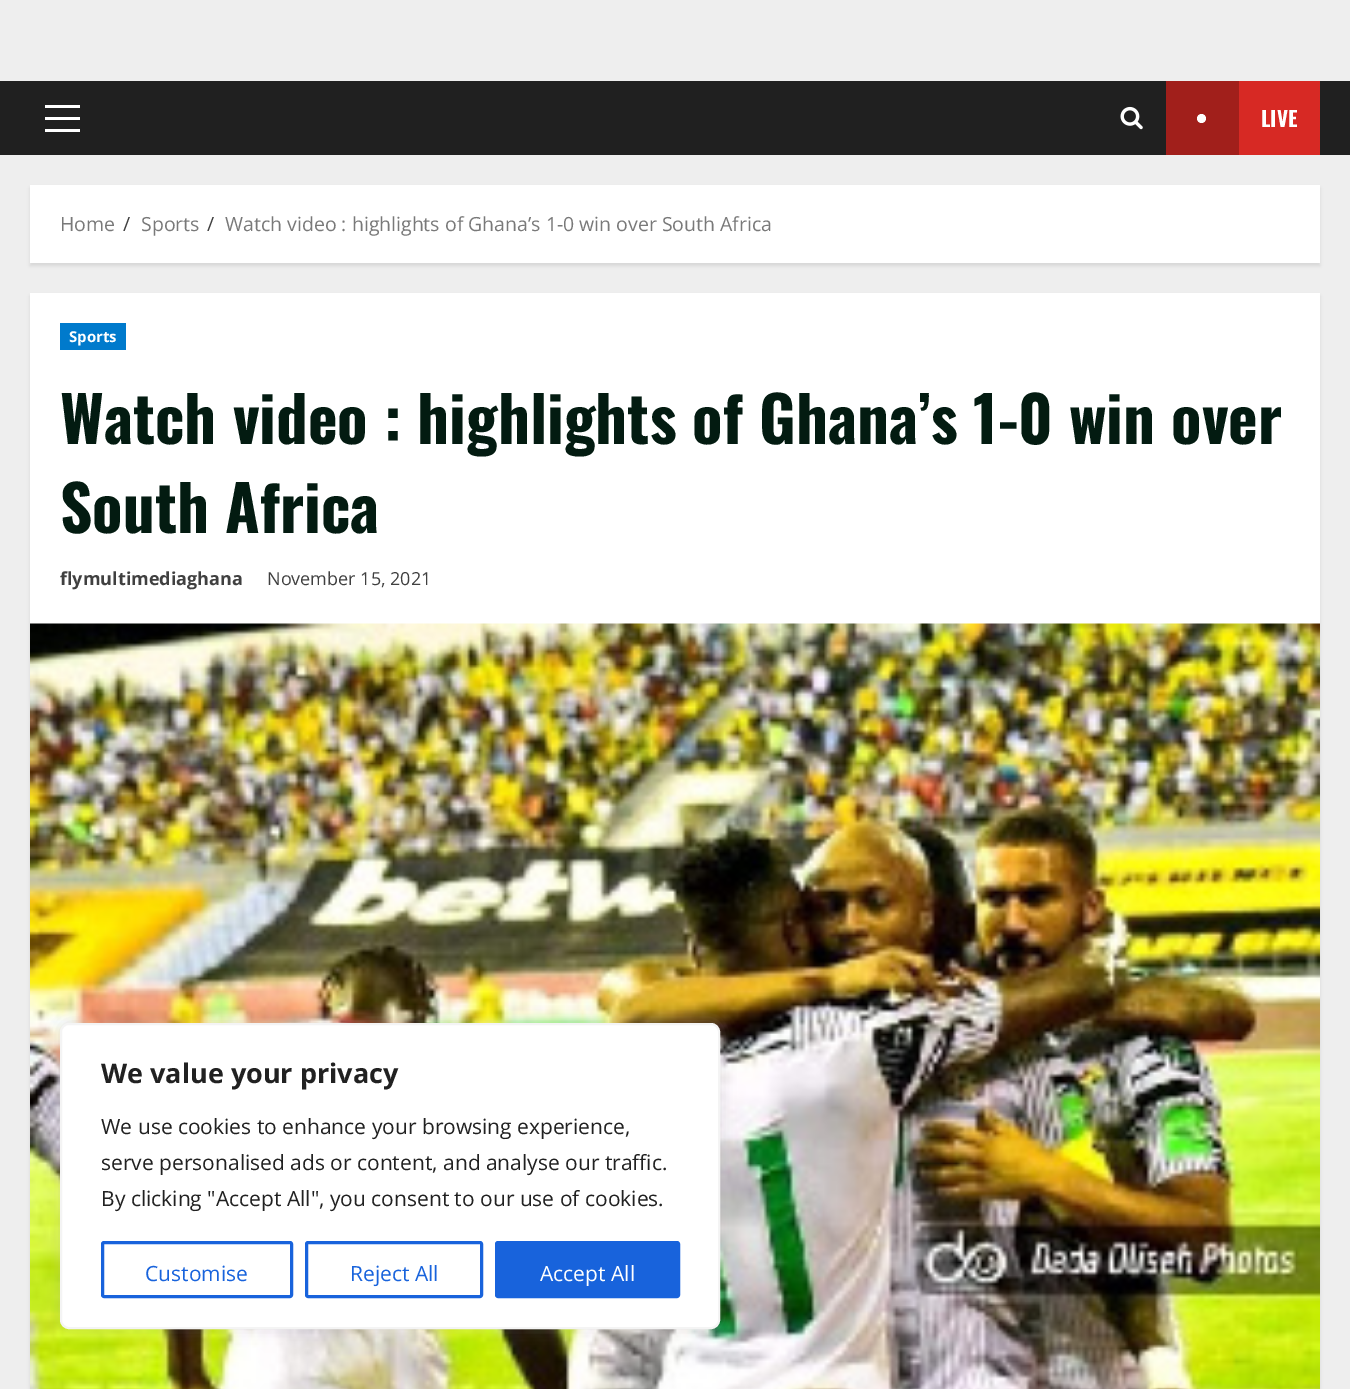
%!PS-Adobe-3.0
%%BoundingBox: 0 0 1350 1389
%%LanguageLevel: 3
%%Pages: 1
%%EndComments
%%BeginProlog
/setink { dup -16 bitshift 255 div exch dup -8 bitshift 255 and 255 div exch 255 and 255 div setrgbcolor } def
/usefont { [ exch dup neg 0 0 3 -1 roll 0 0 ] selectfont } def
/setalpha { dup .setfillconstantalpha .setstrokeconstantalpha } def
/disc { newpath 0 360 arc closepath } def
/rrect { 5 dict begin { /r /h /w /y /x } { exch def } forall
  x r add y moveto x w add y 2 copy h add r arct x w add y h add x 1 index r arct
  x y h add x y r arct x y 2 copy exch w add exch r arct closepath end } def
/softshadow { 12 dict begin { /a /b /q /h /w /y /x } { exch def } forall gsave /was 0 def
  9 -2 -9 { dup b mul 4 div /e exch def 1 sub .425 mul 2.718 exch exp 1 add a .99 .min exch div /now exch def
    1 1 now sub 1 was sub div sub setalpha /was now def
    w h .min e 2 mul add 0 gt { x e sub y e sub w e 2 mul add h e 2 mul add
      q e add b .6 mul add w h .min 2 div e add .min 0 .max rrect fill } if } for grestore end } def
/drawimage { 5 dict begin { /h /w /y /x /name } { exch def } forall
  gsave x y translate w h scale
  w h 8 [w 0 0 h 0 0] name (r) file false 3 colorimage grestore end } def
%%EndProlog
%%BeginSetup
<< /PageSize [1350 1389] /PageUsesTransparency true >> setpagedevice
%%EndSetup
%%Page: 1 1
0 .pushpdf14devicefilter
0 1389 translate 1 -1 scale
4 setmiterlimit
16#EEEEEE setink
0 0 1350 1389 rectfill
[
    [0 81 1350 74 16#202020]
    [45 117 35 3 16#FFFFFF]
    [45 105 35 3 16#FFFFFF]
    [45 129 35 3 16#FFFFFF]
] { aload pop setink rectfill } forall
(img1.raw) 1120 106 23 24 drawimage
16#D72924 setink
1239 81 81 74 rectfill
16#A11F1B setink
1166 81 73 74 rectfill
16#FFFFFF setink
1201.5 118.5 4.5 disc fill
/Oswald-Bold 21 usefont
1261 127 moveto (LIVE) show
16#000000 setink
30 188 1290 78 0 1.5 0.08 softshadow
16#FFFFFF setink
30 185 1290 78 rectfill
/OpenSans-Regular 19.5 usefont
16#797979 setink
60 231 moveto (Home) show
16#404040 setink
123 231 moveto (/) show
16#797979 setink
141 231 moveto (Sports) show
16#404040 setink
207 231 moveto (/) show
16#797979 setink
225 231 moveto (Watch video : highlights of Ghana’s 1-0 win over South Africa) show
16#000000 setink
30 296 1290 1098 0 1.5 0.08 softshadow
16#FFFFFF setink
30 293 1290 331 rectfill
16#007ACC setink
60 323 66 27 rectfill
/OpenSans-Bold 15 usefont
16#FFFFFF setink
69 342 moveto (Sports) show
/Oswald-Bold 63 usefont
16#031B11 setink
60 444 moveto (Watch video : highlights of Ghana’s 1-0 win over) show
60 533 moveto (South Africa) show
/OpenSans-Bold 18 usefont
16#404040 setink
60 585 moveto (flymultimediaghana) show
/OpenSans-Regular 18 usefont
267 585 moveto (November 15, 2021) show
(img2.raw) 30 623 1290 766 drawimage
16#ACABAB setink
60 1022 660 306 9 7.5 0.3 softshadow
16#FFFFFF setink
61 1024 658 304 8 rrect gsave fill grestore
16#F4F4F4 setink
2 setlinewidth
stroke
/OpenSans-Bold 27 usefont
16#212121 setink
101 1083 moveto (We value your privacy) show
/OpenSans-Regular 21 usefont
[
    [(We use cookies to enhance your browsing experience,) 101 1134]
    [(serve personalised ads or content, and analyse our traffic.) 101 1170]
    [(By clicking "Accept All", you consent to our use of cookies.) 101 1206]
] { aload pop moveto show } forall
16#1863DC setink
3 setlinewidth
102.5 1242.5 189 54 1.5 rrect stroke
145 1281 moveto (Customise) show
306.5 1242.5 175 54 1.5 rrect stroke
350 1281 moveto (Reject All) show
496.5 1242.5 182 54 1.5 rrect gsave fill grestore
stroke
16#FFFFFF setink
540 1281 moveto (Accept All) show
.poppdf14devicefilter showpage
%%EOF
